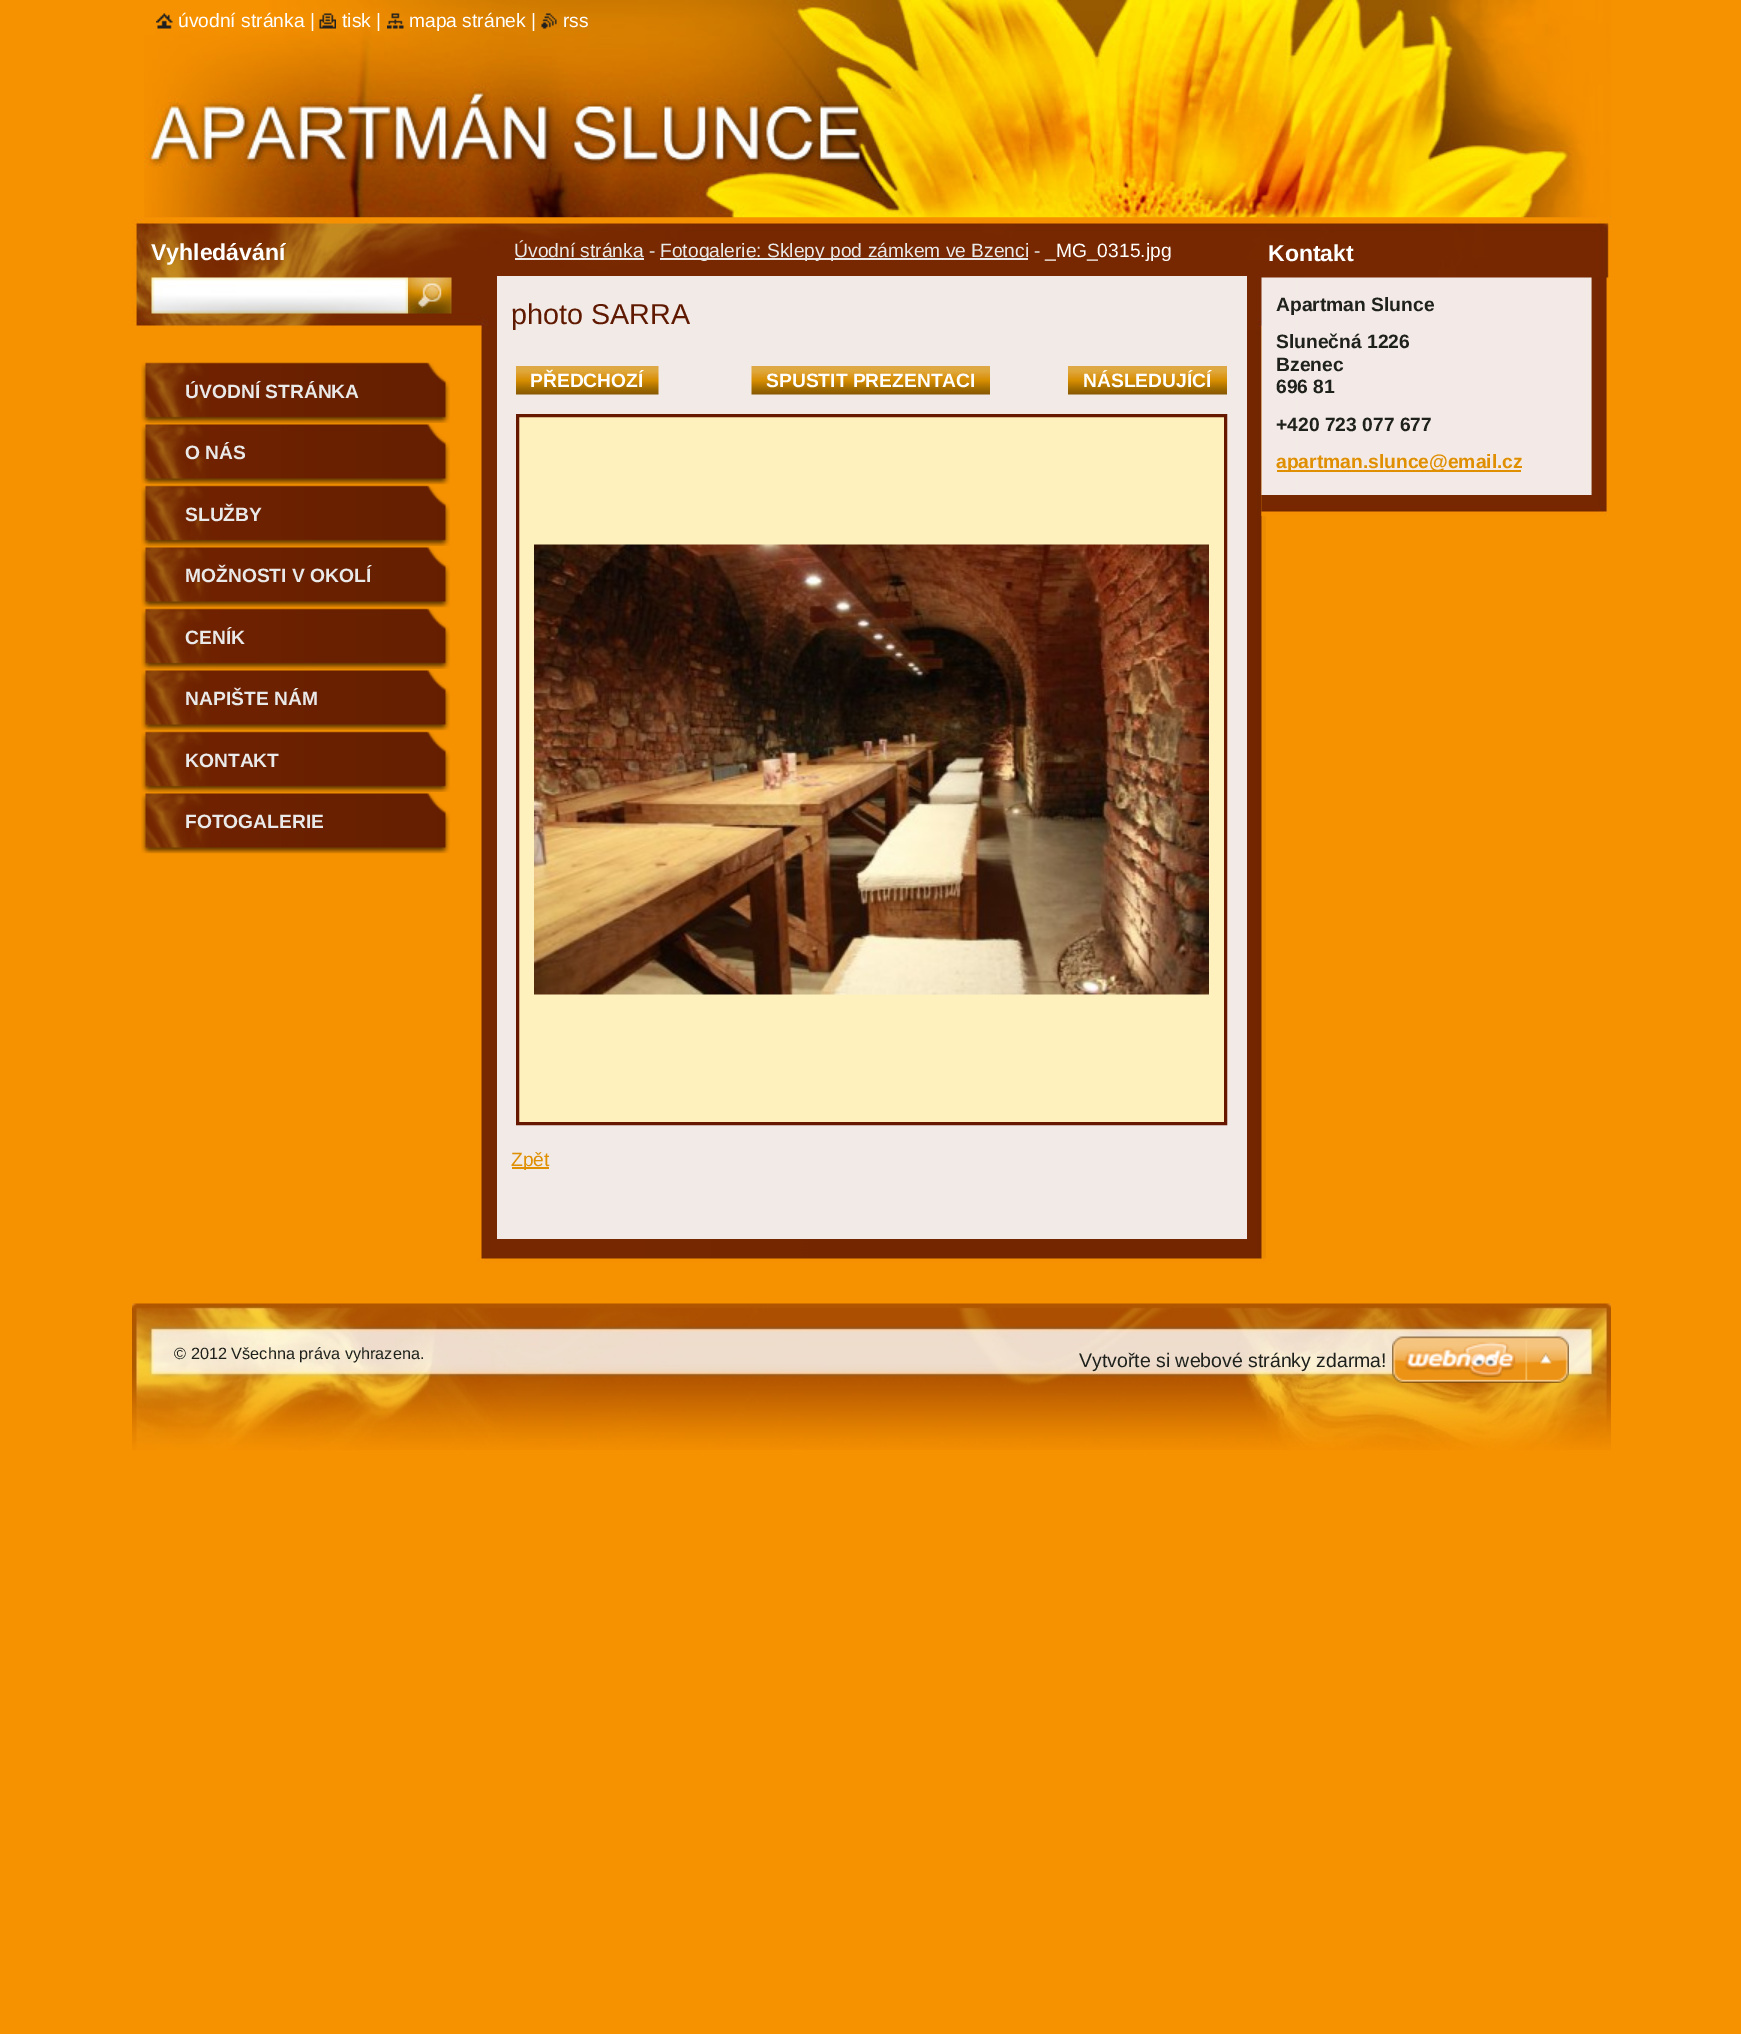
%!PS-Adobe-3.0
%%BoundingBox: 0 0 1741 2034
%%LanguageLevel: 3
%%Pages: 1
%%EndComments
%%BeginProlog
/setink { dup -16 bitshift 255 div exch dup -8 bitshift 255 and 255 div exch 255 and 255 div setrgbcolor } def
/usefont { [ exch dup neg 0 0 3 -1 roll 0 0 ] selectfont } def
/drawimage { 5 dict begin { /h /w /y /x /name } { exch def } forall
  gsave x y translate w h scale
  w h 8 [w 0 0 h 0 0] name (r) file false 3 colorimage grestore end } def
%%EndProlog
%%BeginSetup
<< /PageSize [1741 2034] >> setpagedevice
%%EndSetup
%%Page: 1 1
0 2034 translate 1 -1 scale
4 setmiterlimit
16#F69100 setink
0 0 1741 2034 rectfill
(img1.raw) 144 0 1467 218 drawimage
(img2.raw) 156 13 17 16 drawimage
/LiberationSans-Regular 19.25 usefont
16#FFFFFF setink
178 27 moveto (úvodní stránka |) show
(img3.raw) 319 13 17 16 drawimage
342 27 moveto (tisk |) show
(img4.raw) 387 13 17 16 drawimage
409 27 moveto (mapa stránek |) show
(img5.raw) 541 13 16 16 drawimage
563 27 moveto (rss) show
(img6.raw) 132 219 1478 111 drawimage
/LiberationSans-Bold 23 usefont
151 260 moveto (Vyhledávání) show
(img7.raw) 151 277 257 37 drawimage
(img8.raw) 408 277 44 37 drawimage
(img9.raw) 477 330 789 929 drawimage
(img10.raw) 477 219 789 111 drawimage
/LiberationSans-Regular 19.25 usefont
16#E9E9E9 setink
514 257 moveto (Úvodní stránka -) show
515 258 129 2 rectfill
660 258 368 2 rectfill
660 257 moveto (Fotogalerie: Sklepy pod zámkem ve Bzenci -) show
16#FFFFFF setink
1045 257 moveto (_MG_0315.jpg) show
16#F2EAE6 setink
497 276 750 963 rectfill
/LiberationSans-Regular 28.75 usefont
16#5F1900 setink
511 324 moveto (photo SARRA) show
(img11.raw) 516 366 143 29 drawimage
/LiberationSans-Bold 19.25 usefont
16#FFFFFF setink
530 387 moveto (PŘEDCHOZÍ) show
(img12.raw) 751 366 239 29 drawimage
766 387 moveto (SPUSTIT PREZENTACI) show
(img13.raw) 1068 366 159 29 drawimage
1083 387 moveto (NÁSLEDUJÍCÍ) show
16#FEF1BE setink
517.5 415.5 moveto 1225.5 415.5 lineto 1225.5 1123.5 lineto 517.5 1123.5 lineto closepath gsave fill grestore
16#661800 setink
3 setlinewidth
stroke
(img14.raw) 534 544 675 451 drawimage
16#DF8F00 setink
512 1167 37 2 rectfill
/LiberationSans-Regular 19.25 usefont
511 1166 moveto (Zpět) show
(img15.raw) 477 1258 789 5 drawimage
/LiberationSans-Bold 23 usefont
16#FFFFFF setink
1268 261 moveto (Kontakt) show
(img16.raw) 1261 277 349 218 drawimage
/LiberationSans-Bold 19.25 usefont
16#1F221C setink
[
    [(Apartman Slunce) 1276 311]
    [(Slunečná 1226) 1276 348]
    [(Bzenec) 1276 371]
    [(696 81) 1276 393]
    [(+420 723 077 677) 1276 431]
] { aload pop moveto show } forall
16#DF8F00 setink
1277 470 244 2 rectfill
1276 468 moveto (apartman.slunce@email.cz) show
(img17.raw) 1261 495 348 21 drawimage
(img18.raw) 141 362 309 61 drawimage
16#E9E9E9 setink
185 398 moveto (ÚVODNÍ STRÁNKA) show
(img19.raw) 141 423 309 62 drawimage
185 459 moveto (O NÁS) show
(img18.raw) 141 485 309 61 drawimage
185 521 moveto (SLUŽBY) show
(img19.raw) 141 546 309 62 drawimage
185 582 moveto (MOŽNOSTI V OKOLÍ) show
(img18.raw) 141 608 309 61 drawimage
185 644 moveto (CENÍK) show
(img19.raw) 141 669 309 62 drawimage
185 705 moveto (NAPIŠTE NÁM) show
(img18.raw) 141 731 309 61 drawimage
185 767 moveto (KONTAKT) show
(img19.raw) 141 792 309 62 drawimage
185 828 moveto (FOTOGALERIE) show
(img20.raw) 132 1303 1479 147 drawimage
/LiberationSans-Regular 16.3 usefont
16#1F221C setink
174 1359 moveto (© 2012 Všechna práva vyhrazena.) show
/LiberationSans-Regular 19.5 usefont
1079 1367 moveto (Vytvořte si webové stránky zdarma!) show
(img21.raw) 1392 1336 177 47 drawimage
showpage
%%EOF
